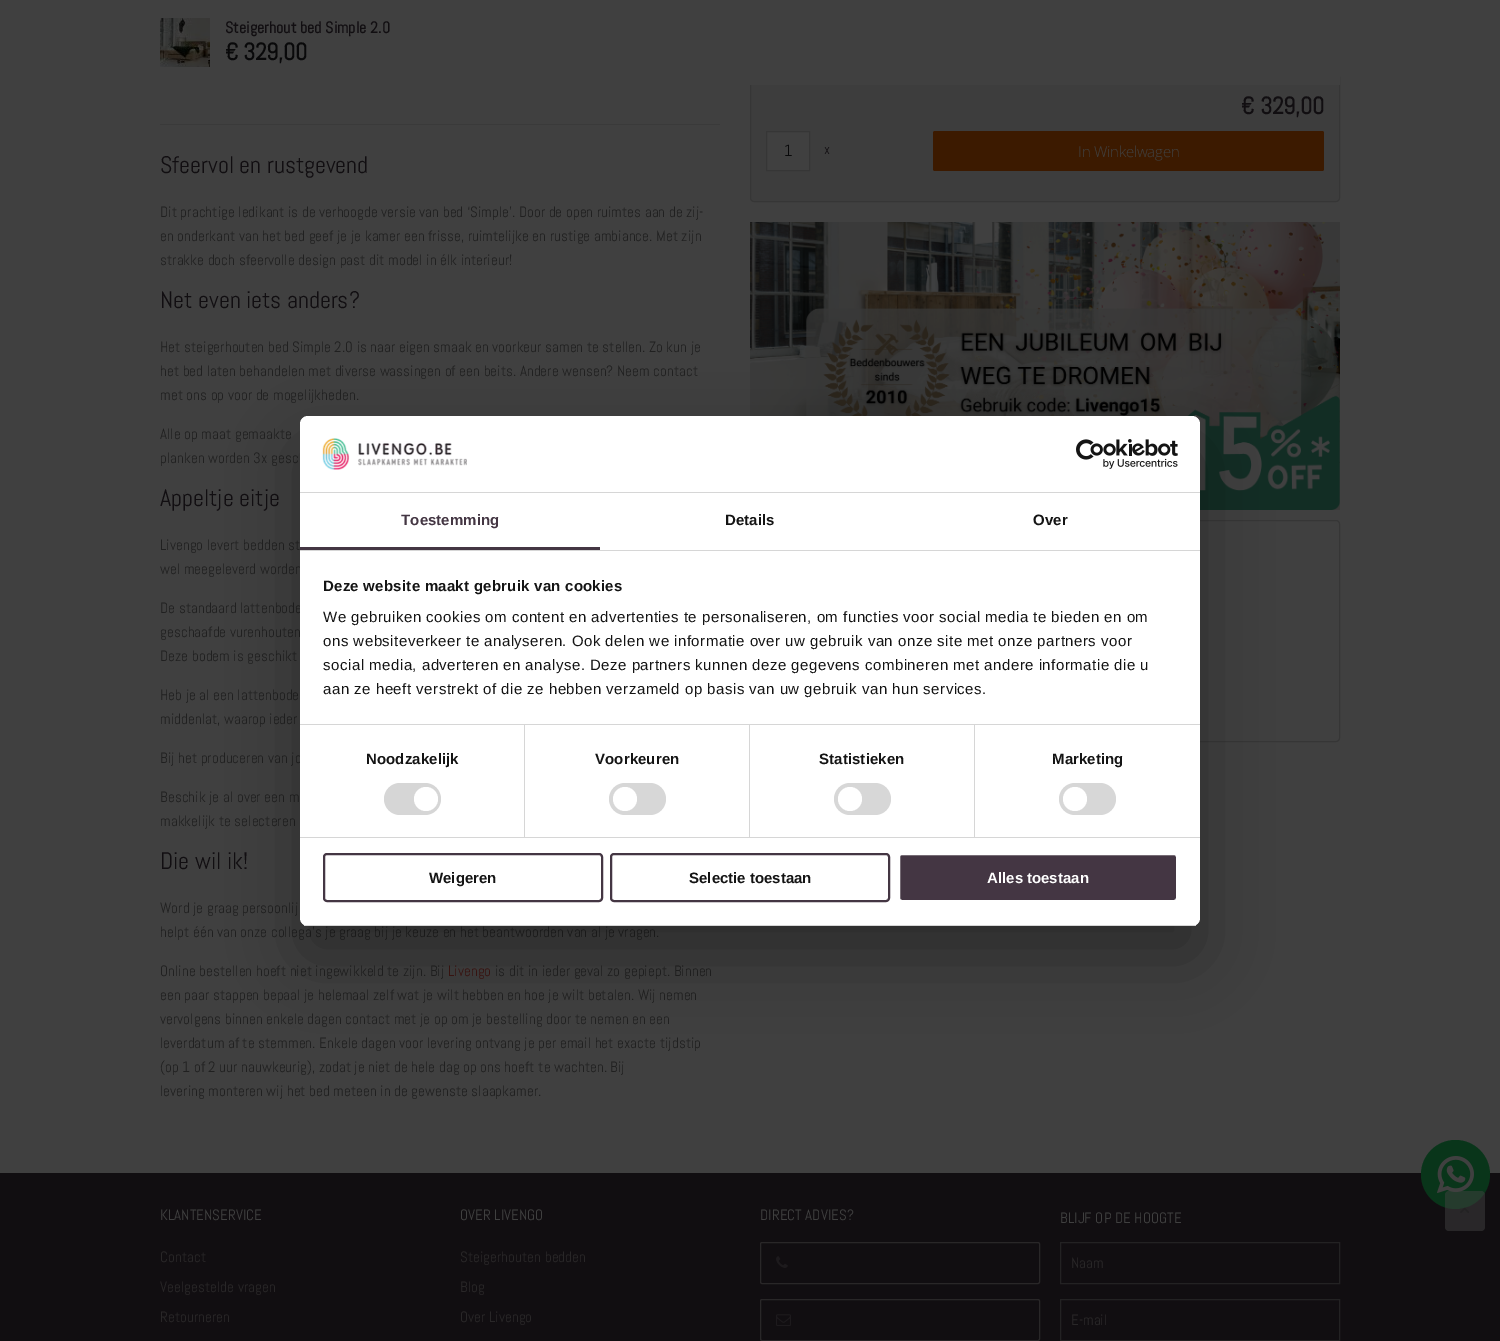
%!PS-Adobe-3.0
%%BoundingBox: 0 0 1500 1341
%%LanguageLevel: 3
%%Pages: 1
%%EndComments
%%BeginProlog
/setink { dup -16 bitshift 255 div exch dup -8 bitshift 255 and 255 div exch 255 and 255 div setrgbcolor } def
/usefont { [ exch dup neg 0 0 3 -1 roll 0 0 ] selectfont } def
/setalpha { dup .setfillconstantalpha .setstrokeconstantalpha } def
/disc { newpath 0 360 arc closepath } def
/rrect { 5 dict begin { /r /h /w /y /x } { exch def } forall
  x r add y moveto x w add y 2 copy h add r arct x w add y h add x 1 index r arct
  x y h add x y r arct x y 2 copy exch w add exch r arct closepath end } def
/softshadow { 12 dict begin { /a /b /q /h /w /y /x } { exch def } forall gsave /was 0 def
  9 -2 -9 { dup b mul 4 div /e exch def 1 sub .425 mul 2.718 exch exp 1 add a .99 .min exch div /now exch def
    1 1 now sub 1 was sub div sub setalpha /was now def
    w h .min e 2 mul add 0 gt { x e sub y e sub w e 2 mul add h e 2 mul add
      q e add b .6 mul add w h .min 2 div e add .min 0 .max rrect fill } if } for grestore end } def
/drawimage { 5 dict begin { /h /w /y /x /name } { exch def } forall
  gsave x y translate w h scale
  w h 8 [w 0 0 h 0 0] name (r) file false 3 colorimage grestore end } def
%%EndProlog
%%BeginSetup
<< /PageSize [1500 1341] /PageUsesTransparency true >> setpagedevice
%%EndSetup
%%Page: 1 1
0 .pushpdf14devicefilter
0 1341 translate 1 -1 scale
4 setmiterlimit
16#404040 setink
0 0 1500 1341 rectfill
16#3D3D3D setink
750.5 73.5 589 128 3.5 rrect gsave fill grestore
16#363636 setink
stroke
16#404040 setink
750 73 590 12 rectfill
(img1.raw) 160 18 50 49 drawimage
/Abel-Bold 16 usefont
16#110E11 setink
225 33 moveto (Steigerhout bed Simple 2.0) show
/Abel-Bold 24 usefont
16#09090A setink
225 60 moveto -0.5 0 (€ 329,00) ashow
16#110E11 setink
1241 114 moveto -0.25 0 (€ 329,00) ashow
16#404040 setink
766.5 131.5 moveto 809.5 131.5 lineto 809.5 170.5 lineto 766.5 170.5 lineto closepath gsave fill grestore
16#363636 setink
stroke
/Abel-Regular 16 usefont
16#09090A setink
784 156 moveto (1) show
/Abel-Regular 14 usefont
16#110E11 setink
824 154 moveto (x) show
16#3C1A00 setink
933 131 391 40 2 rrect fill
/OpenSans-Light 15 usefont
16#404040 setink
1078 157 moveto -0.25 0 (In Winkelwagen) ashow
(img2.raw) 750 222 590 288 drawimage
16#363636 setink
750.5 520.5 589 221 3.5 rrect stroke
16#3A3A3A setink
160 124 560 1 rectfill
/Abel-Regular 24 usefont
16#110E11 setink
160 173 moveto (Sfeervol en rustgevend) show
/Abel-Regular 15 usefont
16#202020 setink
160 217 moveto 0.07 0 (Dit prachtige ledikant is de verhoogde versie van bed ‘Simple’. Door de open ruimtes aan de zij-) ashow
160 241 moveto 0.07 0 (en onderkant van het bed geef je je kamer een frisse, ruimtelijke en rustige ambiance. Met zijn) ashow
160 265 moveto 0.07 0 (strakke doch sfeervolle design past dit model in élk interieur!) ashow
/Abel-Regular 24 usefont
16#110E11 setink
160 308 moveto (Net even iets anders?) show
/Abel-Regular 15 usefont
16#202020 setink
160 352 moveto 0.07 0 (Het steigerhouten bed Simple 2.0 is naar eigen smaak en voorkeur samen te stellen. Zo kun je) ashow
160 376 moveto 0.07 0 (het bed laten behandelen met diverse wassingen of een beits. Andere wensen? Neem contact) ashow
160 400 moveto 0.07 0 (met ons op voor de mogelijkheden.) ashow
160 439 moveto 0.07 0 (Alle op maat gemaakte) ashow
160 463 moveto 0.07 0 (planken worden 3x gesc) ashow
/Abel-Regular 24 usefont
16#110E11 setink
160 506 moveto (Appeltje eitje) show
/Abel-Regular 15 usefont
16#202020 setink
160 550 moveto 0.07 0 (Livengo levert bedden st) ashow
160 574 moveto 0.07 0 (wel meegeleverd worden) ashow
160 613 moveto 0.07 0 (De standaard lattenbode) ashow
160 637 moveto 0.07 0 (geschaafde vurenhouten) ashow
160 661 moveto 0.07 0 (Deze bodem is geschikt) ashow
160 700 moveto 0.07 0 (Heb je al een lattenbode) ashow
160 724 moveto 0.07 0 (middenlat, waarop ieder) ashow
160 763 moveto 0.07 0 (Bij het produceren van jo) ashow
160 802 moveto 0.07 0 (Beschik je al over een m) ashow
160 826 moveto 0.07 0 (makkelijk te selecteren) ashow
/Abel-Regular 24 usefont
16#110E11 setink
160 869 moveto (Die wil ik!) show
/Abel-Regular 15 usefont
16#202020 setink
160 913 moveto 0.07 0 (Word je graag persoonlij) ashow
160 937 moveto 0.07 0 (helpt één van onze collega’s je graag bij je keuze en het beantwoorden van al je vragen.) ashow
160 976 moveto 0.07 0 (Online bestellen hoeft niet ingewikkeld te zijn. Bij) ashow
16#3C1411 setink
448 976 moveto 0.07 0 (Livengo) ashow
16#202020 setink
495 976 moveto 0.07 0 (is dit in ieder geval zo gepiept. Binnen) ashow
160 1000 moveto 0.07 0 (een paar stappen bepaal je helemaal zelf wat je wilt hebben en hoe je wilt betalen. Wij nemen) ashow
160 1024 moveto 0.07 0 (vervolgens binnen enkele dagen contact met je op om je bestelling door te nemen en een) ashow
160 1048 moveto 0.07 0 (leverdatum af te stemmen. Enkele dagen voor levering ontvang je per email het exacte tijdstip) ashow
160 1072 moveto 0.07 0 (\(op 1 of 2 uur nauwkeurig\), zodat je niet de hele dag op ons hoeft te wachten. Bij) ashow
160 1096 moveto 0.07 0 (levering monteren wij het bed meteen in de gewenste slaapkamer.) ashow
16#110E11 setink
0 1173 1500 168 rectfill
16#09351A setink
1455.5 1174.5 34.5 disc fill
(img3.raw) 1437 1156 37 37 drawimage
16#404040 setink
160 1220 moveto 0.07 0 (KLANTENSERVICE) ashow
16#292728 setink
160 1262 moveto 0.07 0 (Contact) ashow
160 1292 moveto 0.07 0 (Veelgestelde vragen) ashow
160 1322 moveto 0.07 0 (Retourneren) ashow
16#404040 setink
460 1220 moveto 0.07 0 (OVER LIVENGO) ashow
16#292728 setink
460 1262 moveto 0.07 0 (Steigerhouten bedden) ashow
460 1292 moveto 0.07 0 (Blog) ashow
460 1322 moveto 0.07 0 (Over Livengo) ashow
16#404040 setink
760 1220 moveto 0.07 0 (DIRECT ADVIES?) ashow
16#292728 setink
760.5 1242.5 279 41 1.5 rrect stroke
(img4.raw) 776 1256 12 12 drawimage
760.5 1299.5 279 41 1.5 rrect stroke
(img5.raw) 776 1314 15 12 drawimage
16#404040 setink
1060 1223 moveto 0.07 0 (BLIJF OP DE HOOGTE) ashow
16#232223 setink
1060.5 1242.5 279 41 rectstroke
16#292728 setink
1071 1268 moveto (Naam) show
16#232223 setink
1060.5 1299.5 279 41 rectstroke
16#292728 setink
1071 1325 moveto (E-mail) show
0.5 setalpha
16#404040 setink
1445 1191 40 40 4 rrect fill
1 setalpha
(img6.raw) 1460 1207 9 6 drawimage
16#000000 setink
300 448 900 510 8 34 0.3 softshadow
16#FFFFFF setink
300 416 900 510 8 rrect fill
16#D6D6D6 setink
300 492 900 1 rectfill
(img7.raw) 322 438 145 32 drawimage
(img8.raw) 1076 439 102 30 drawimage
300 550 900 1 rectfill
16#443643 setink
300 547 300 3 rectfill
/LiberationSans-Bold 15 usefont
401 525 moveto 0.1 0 (Toestemming) ashow
16#141414 setink
725 525 moveto 0.1 0 (Details) ashow
1033 525 moveto 0.1 0 (Over) ashow
16#D6D6D6 setink
300 724 900 1 rectfill
16#141414 setink
323 591 moveto 0.25 0 (Deze website maakt gebruik van cookies) ashow
/LiberationSans-Regular 15 usefont
323 622 moveto 0.5 0 (We gebruiken cookies om content en advertenties te personaliseren, om functies voor social media te bieden en om) ashow
323 646 moveto 0.5 0 (ons websiteverkeer te analyseren. Ook delen we informatie over uw gebruik van onze site met onze partners voor) ashow
323 670 moveto 0.5 0 (social media, adverteren en analyse. Deze partners kunnen deze gegevens combineren met andere informatie die u) ashow
323 694 moveto 0.5 0 (aan ze heeft verstrekt of die ze hebben verzameld op basis van uw gebruik van hun services.) ashow
16#D6D6D6 setink
300 837 900 1 rectfill
524 725 1 112 rectfill
/LiberationSans-Bold 15 usefont
16#141414 setink
366 764 moveto 0.1 0 (Noodzakelijk) ashow
16#D6D6D6 setink
384 783 57 32 16 rrect fill
16#FFFFFF setink
426 799 12 disc fill
16#D6D6D6 setink
749 725 1 112 rectfill
16#141414 setink
595 764 moveto 0.1 0 (Voorkeuren) ashow
16#D7D7D7 setink
609 783 57 32 16 rrect fill
16#FFFFFF setink
625 799 12 disc fill
16#D6D6D6 setink
974 725 1 112 rectfill
16#141414 setink
819 764 moveto 0.1 0 (Statistieken) ashow
16#D7D7D7 setink
834 783 57 32 16 rrect fill
16#FFFFFF setink
850 799 12 disc fill
16#141414 setink
1052 764 moveto 0.1 0 (Marketing) ashow
16#D7D7D7 setink
1059 783 57 32 16 rrect fill
16#FFFFFF setink
1075 799 12 disc fill
gsave
300 416 900 510 8 rrect clip newpath
16#D6D6D6 setink
300 925 900 1 rectfill
grestore
16#443643 setink
2 setlinewidth
324 854 278 47 3 rrect stroke
16#141414 setink
429 883 moveto (Weigeren) show
16#443643 setink
611 854 278 47 3 rrect stroke
16#141414 setink
689 883 moveto (Selectie toestaan) show
16#443643 setink
899 854 278 47 3 rrect gsave fill grestore
16#FFFFFF setink
stroke
987 883 moveto (Alles toestaan) show
.poppdf14devicefilter showpage
%%EOF
